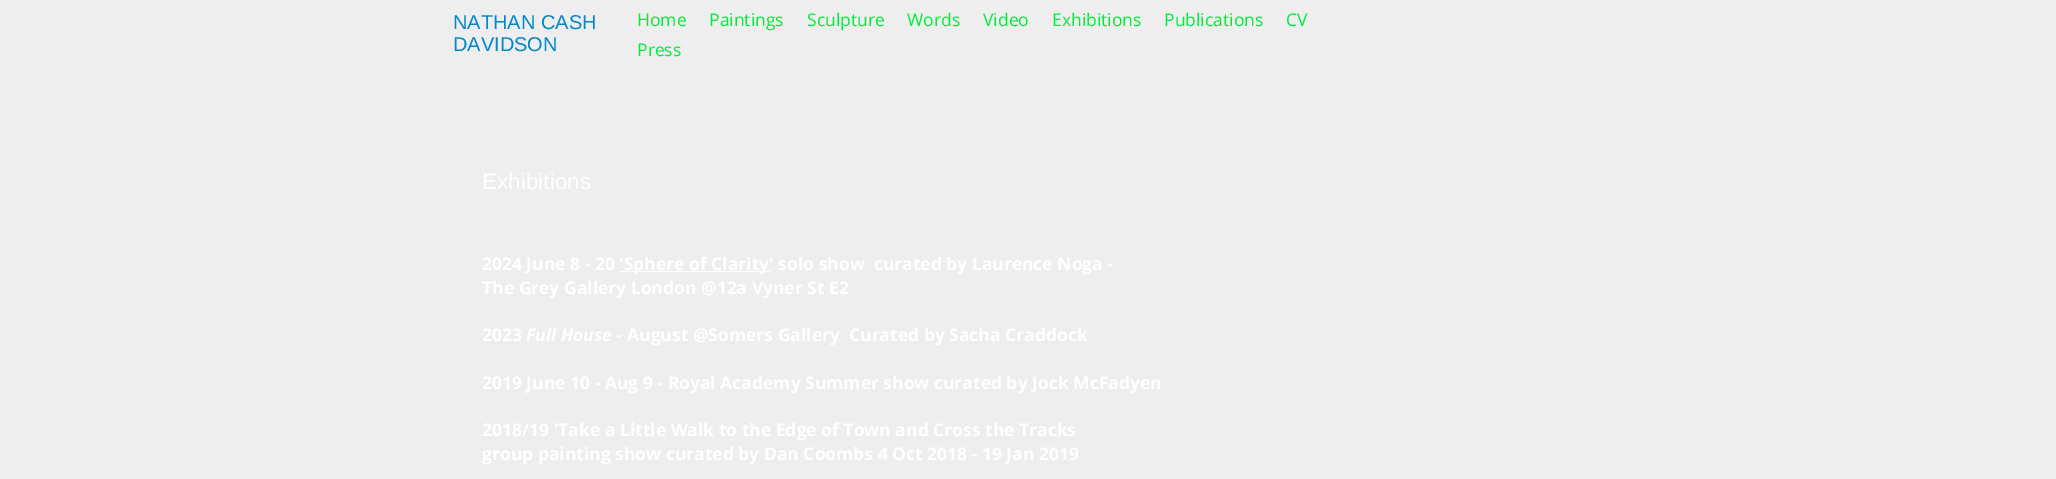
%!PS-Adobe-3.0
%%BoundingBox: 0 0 2056 479
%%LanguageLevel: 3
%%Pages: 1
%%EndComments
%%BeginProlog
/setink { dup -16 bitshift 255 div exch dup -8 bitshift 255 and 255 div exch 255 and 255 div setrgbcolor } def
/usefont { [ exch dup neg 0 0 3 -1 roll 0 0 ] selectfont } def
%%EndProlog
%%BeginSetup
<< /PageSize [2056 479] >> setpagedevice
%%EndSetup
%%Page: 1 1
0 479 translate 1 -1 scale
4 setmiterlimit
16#EEEEEE setink
0 0 2056 479 rectfill
/LiberationSans-Regular 20 usefont
16#0088CB setink
453 29 moveto (NATHAN CASH) show
453 51 moveto (DAVIDSON) show
/OpenSans-Regular 17.5 usefont
16#00EC3D setink
[
    [(Home) 637 26]
    [(Paintings) 709 26]
    [(Sculpture) 807 26]
    [(Words) 907 26]
    [(Video) 983 26]
    [(Exhibitions) 1052 26]
    [(Publications) 1164 26]
    [(CV) 1286 26]
    [(Press) 637 56]
] { aload pop moveto show } forall
/LiberationSans-Regular 22.5 usefont
16#FFFFFF setink
482 189 moveto (Exhibitions) show
/OpenSans-Bold 17.5 usefont
482 270 moveto (2024 June 8 - 20) show
619 271 151 1 rectfill
[
    [('Sphere of Clarity' solo show  curated by Laurence Noga -) 619 270]
    [(The Grey Gallery London @12a Vyner St E2) 482 294]
    [(2023) 482 341]
] { aload pop moveto show } forall
/OpenSans-BoldItalic 17.5 usefont
526 341 moveto (Full House -) show
/OpenSans-Bold 17.5 usefont
[
    [(August @Somers Gallery  Curated by Sacha Craddock) 627 341]
    [(2019 June 10 - Aug 9 - Royal Academy Summer show curated by Jock McFadyen) 482 389]
    [(2018/19 'Take a Little Walk to the Edge of Town and Cross the Tracks) 482 436]
    [(group painting show curated by Dan Coombs 4 Oct 2018 - 19 Jan 2019) 482 460]
] { aload pop moveto show } forall
showpage
%%EOF
